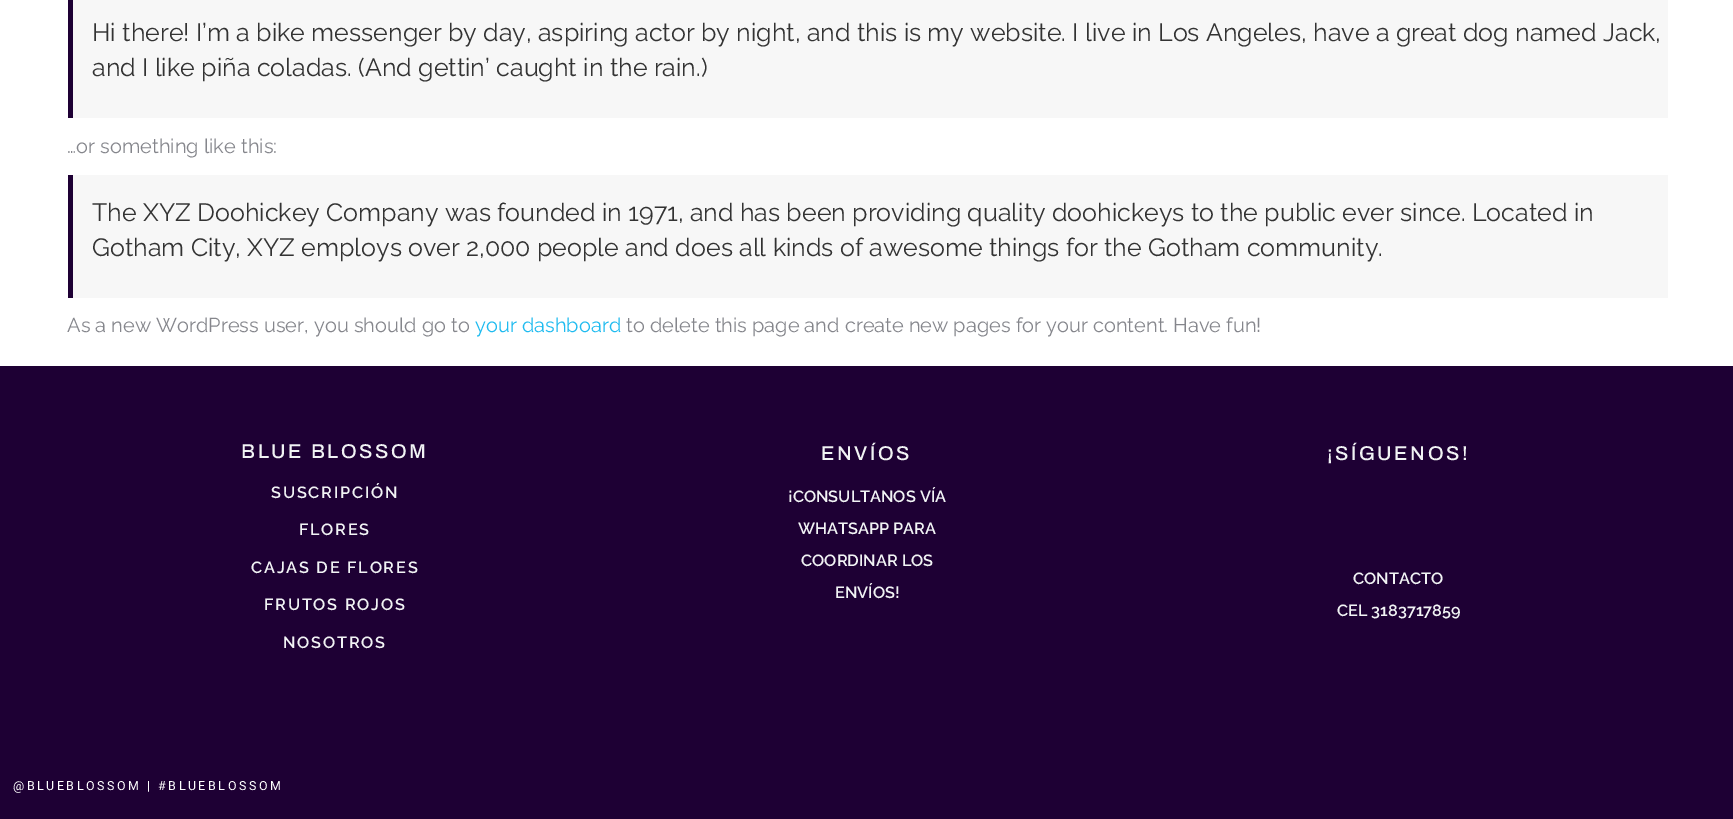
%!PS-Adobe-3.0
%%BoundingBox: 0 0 1733 819
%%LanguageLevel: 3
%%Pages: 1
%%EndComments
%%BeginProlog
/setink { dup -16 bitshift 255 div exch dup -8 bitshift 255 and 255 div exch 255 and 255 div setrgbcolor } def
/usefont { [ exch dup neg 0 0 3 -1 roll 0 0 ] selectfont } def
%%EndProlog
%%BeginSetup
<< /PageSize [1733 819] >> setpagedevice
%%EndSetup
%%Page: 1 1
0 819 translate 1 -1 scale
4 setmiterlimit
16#FFFFFF setink
0 0 1733 819 rectfill
16#F7F7F7 setink
73 0 1595 118 rectfill
16#1E0034 setink
68 0 5 118 rectfill
/Raleway-Regular 25 usefont
16#333333 setink
92 41 moveto (Hi there! I’m a bike messenger by day, aspiring actor by night, and this is my website. I live in Los Angeles, have a great dog named Jack,) show
92 76 moveto (and I like piña coladas. \(And gettin’ caught in the rain.\)) show
/Raleway-Regular 20 usefont
16#85868C setink
67 153 moveto (…or something like this:) show
16#F7F7F7 setink
73 175 1595 123 rectfill
16#1E0034 setink
68 175 5 123 rectfill
/Raleway-Regular 25 usefont
16#333333 setink
92 221 moveto (The XYZ Doohickey Company was founded in 1971, and has been providing quality doohickeys to the public ever since. Located in) show
92 256 moveto (Gotham City, XYZ employs over 2,000 people and does all kinds of awesome things for the Gotham community.) show
/Raleway-Regular 20 usefont
16#85868C setink
67 332 moveto (As a new WordPress user, you should go to) show
16#1EBBF0 setink
475 332 moveto (your dashboard) show
16#85868C setink
626 332 moveto (to delete this page and create new pages for your content. Have fun!) show
16#1E0034 setink
0 366 1733 453 rectfill
/Archivo-Medium 20 usefont
16#F1F3F4 setink
241 458 moveto 2.5 0 (BLUE BLOSSOM) ashow
/Raleway-SemiBold 16.25 usefont
271 498 moveto 1.75 0 (SUSCRIPCIÓN) ashow
299 535 moveto 1.75 0 (FLORES) ashow
251 573 moveto 1.75 0 (CAJAS DE FLORES) ashow
264 610 moveto 1.75 0 (FRUTOS ROJOS) ashow
283 648 moveto 1.75 0 (NOSOTROS) ashow
/Archivo-Medium 20 usefont
821 460 moveto 2.5 0 (ENVÍOS) ashow
/Raleway-SemiBold 16.25 usefont
[
    [(¡CONSULTANOS VÍA) 788 502]
    [(WHATSAPP PARA) 798 534]
    [(COORDINAR LOS) 801 566]
    [(ENVÍOS!) 835 598]
] { aload pop moveto show } forall
/Archivo-Medium 20 usefont
1327 460 moveto 2.5 0 (¡SÍGUENOS!) ashow
/Raleway-SemiBold 16.25 usefont
1353 584 moveto (CONTACTO) show
1337 616 moveto (CEL 3183717859) show
/Roboto-Regular 12.5 usefont
16#FFFFFF setink
13 790 moveto 2.5 0 (@BLUEBLOSSOM | #BLUEBLOSSOM) ashow
showpage
%%EOF
